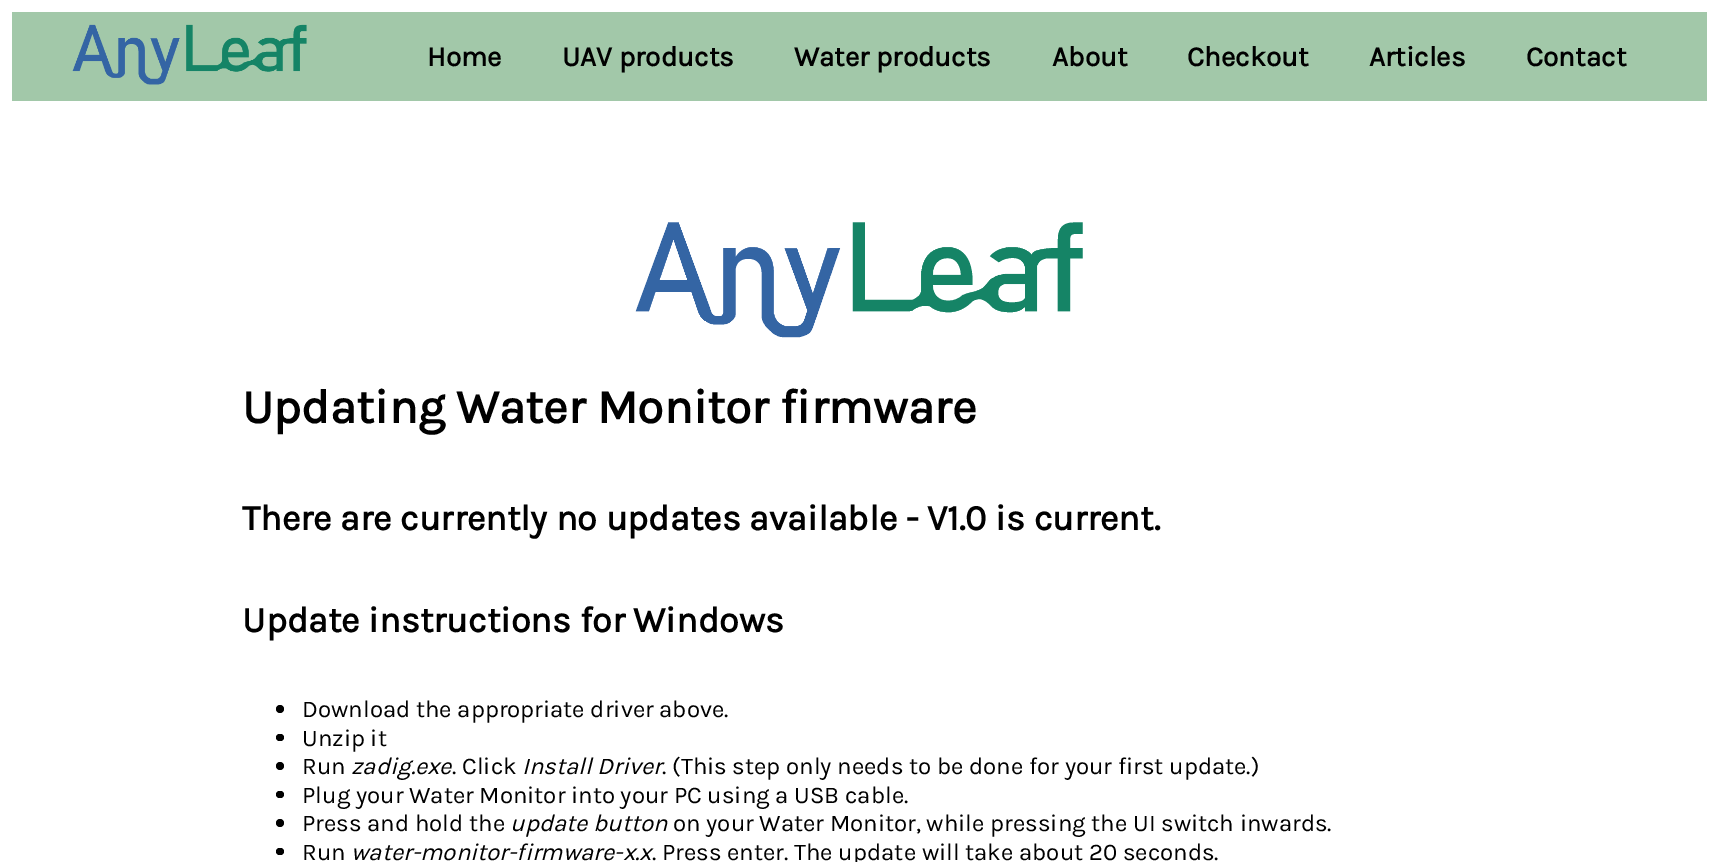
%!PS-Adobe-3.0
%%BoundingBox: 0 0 1719 862
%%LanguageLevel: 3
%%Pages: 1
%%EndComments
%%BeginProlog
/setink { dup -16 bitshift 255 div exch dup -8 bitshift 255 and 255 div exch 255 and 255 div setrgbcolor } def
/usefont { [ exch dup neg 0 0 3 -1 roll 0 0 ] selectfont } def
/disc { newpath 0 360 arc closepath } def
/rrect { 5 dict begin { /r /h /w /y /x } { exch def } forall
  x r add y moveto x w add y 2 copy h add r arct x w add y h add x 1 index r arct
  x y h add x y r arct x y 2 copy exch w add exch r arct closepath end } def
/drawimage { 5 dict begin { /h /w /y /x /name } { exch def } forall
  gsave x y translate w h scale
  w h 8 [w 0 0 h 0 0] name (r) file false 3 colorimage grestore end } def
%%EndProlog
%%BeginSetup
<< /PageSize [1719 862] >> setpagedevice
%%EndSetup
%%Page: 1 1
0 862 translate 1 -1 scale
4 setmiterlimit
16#FFFFFF setink
0 0 1719 862 rectfill
16#A2C8A9 setink
12 12 1695 89 rectfill
(img1.raw) 72 24 235 61 drawimage
/Karla-Bold 28 usefont
16#000000 setink
[
    [(Home) 427 66]
    [(UAV products) 562 66]
    [(Water products) 794 66]
    [(About) 1052 66]
    [(Checkout) 1187 66]
    [(Articles) 1369 66]
    [(Contact) 1526 66]
] { aload pop moveto show } forall
(img2.raw) 635 222 448 116 drawimage
/Karla-Bold 48 usefont
242 423 moveto (Updating Water Monitor firmware) show
/Karla-Bold 36 usefont
242 530 moveto (There are currently no updates available - V1.0 is current.) show
242 632 moveto (Update instructions for Windows) show
280 709 4 disc fill
/Karla-Regular 24 usefont
302 717 moveto (Download the appropriate driver above.) show
276 734 8 7 3.5 rrect fill
302 746 moveto (Unzip it) show
280 766 4 disc fill
302 774 moveto (Run) show
/Karla-Italic 24 usefont
351 774 moveto (zadig.exe) show
/Karla-Regular 24 usefont
452 774 moveto (. Click) show
/Karla-Italic 24 usefont
522 774 moveto (Install Driver) show
/Karla-Regular 24 usefont
662 774 moveto (. \(This step only needs to be done for your first update.\)) show
276 791 8 7 3.5 rrect fill
302 803 moveto (Plug your Water Monitor into your PC using a USB cable.) show
280 823 4 disc fill
302 831 moveto (Press and hold the) show
/Karla-Italic 24 usefont
510 831 moveto (update button) show
/Karla-Regular 24 usefont
673 831 moveto (on your Water Monitor, while pressing the UI switch inwards.) show
276 848 8 7 3.5 rrect fill
302 860 moveto (Run) show
/Karla-Italic 24 usefont
351 860 moveto (water-monitor-firmware-x.x) show
/Karla-Regular 24 usefont
652 860 moveto (. Press enter. The update will take about 20 seconds.) show
showpage
%%EOF
